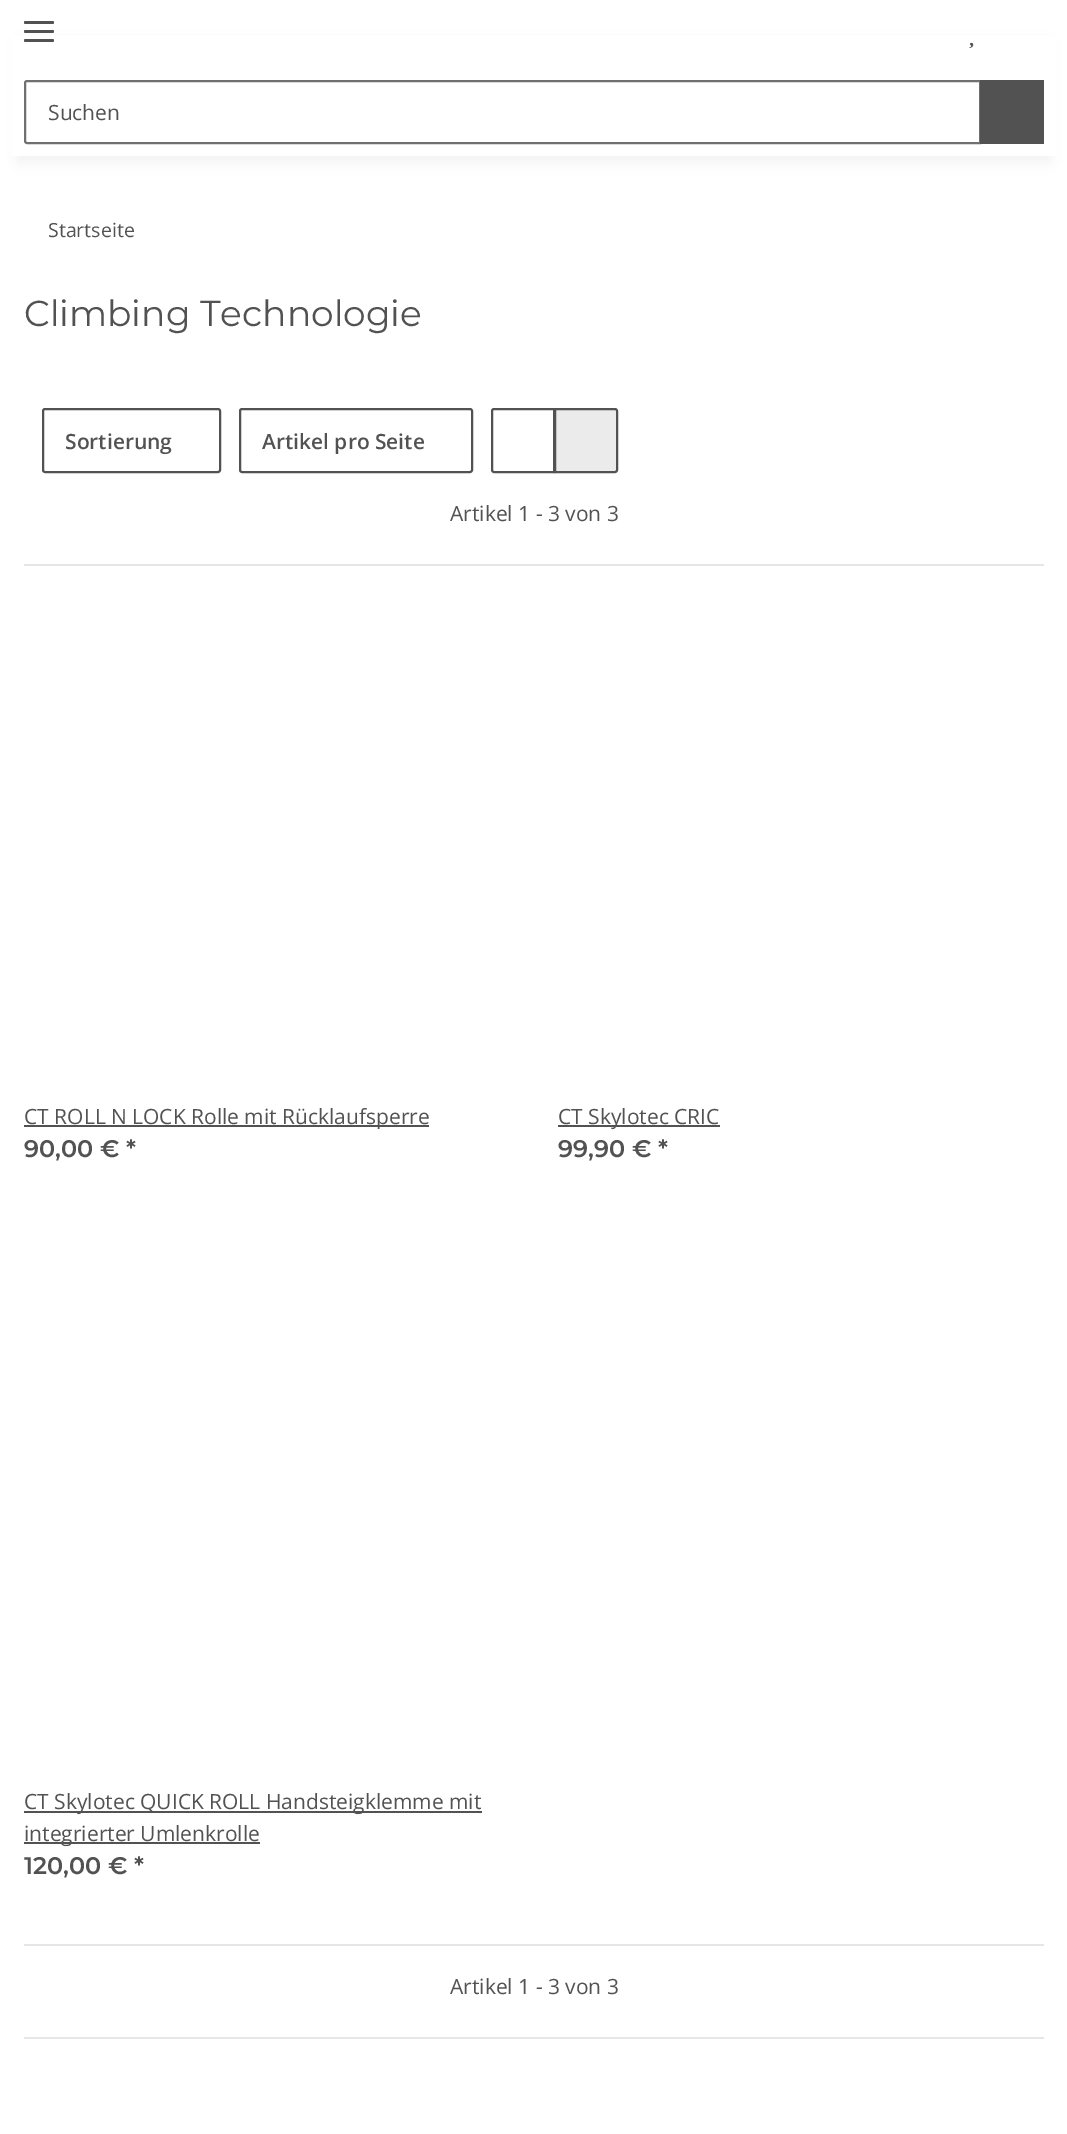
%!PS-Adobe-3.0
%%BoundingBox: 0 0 1067 2134
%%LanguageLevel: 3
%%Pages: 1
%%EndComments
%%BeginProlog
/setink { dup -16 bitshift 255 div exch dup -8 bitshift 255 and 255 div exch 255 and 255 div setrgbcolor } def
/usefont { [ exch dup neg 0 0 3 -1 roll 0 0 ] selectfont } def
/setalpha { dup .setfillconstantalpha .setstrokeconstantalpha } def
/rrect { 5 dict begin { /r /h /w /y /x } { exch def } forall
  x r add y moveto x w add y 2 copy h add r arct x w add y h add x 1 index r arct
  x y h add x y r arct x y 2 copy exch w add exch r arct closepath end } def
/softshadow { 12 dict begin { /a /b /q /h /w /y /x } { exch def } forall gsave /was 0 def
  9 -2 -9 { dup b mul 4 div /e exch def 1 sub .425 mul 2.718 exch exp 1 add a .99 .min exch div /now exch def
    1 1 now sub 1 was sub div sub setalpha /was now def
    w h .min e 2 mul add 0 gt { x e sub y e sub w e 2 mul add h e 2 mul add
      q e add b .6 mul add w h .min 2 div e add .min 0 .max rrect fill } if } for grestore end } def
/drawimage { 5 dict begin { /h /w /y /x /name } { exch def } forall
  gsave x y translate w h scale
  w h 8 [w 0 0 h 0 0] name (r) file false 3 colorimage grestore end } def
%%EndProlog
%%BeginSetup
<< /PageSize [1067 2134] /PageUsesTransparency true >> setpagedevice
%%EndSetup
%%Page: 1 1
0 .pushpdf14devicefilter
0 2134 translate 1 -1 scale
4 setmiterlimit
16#FFFFFF setink
0 0 1067 2134 rectfill
16#000000 setink
18 42 1032 120 0 7 0.06 softshadow
16#FFFFFF setink
11 35 1046 121 rectfill
16#525252 setink
24 30 30 3 1.5 rrect fill
24 21 30 3 1.5 rrect fill
24 39 30 3 1.5 rrect fill
(img1.raw) 969 42 5 7 drawimage
16#707070 setink
2 setlinewidth
27 81 moveto 980 81 lineto 980 143 lineto 27 143 lineto 26 143 25 142 25 141 curveto 25 83 lineto 25 82 26 81 27 81 curveto closepath stroke
/OpenSans-Regular 21 usefont
16#525252 setink
48 120 moveto (Suchen) show
980 80 64 64 rectfill
/OpenSans-Regular 19.5 usefont
48 237 moveto (Startseite) show
/Montserrat-Regular 36 usefont
24 326 moveto (Climbing Technologie) show
43 409 177 63 2 rrect stroke
/OpenSans-SemiBold 21 usefont
65 449 moveto (Sortierung) show
240 409 232 63 2 rrect stroke
262 449 moveto (Artikel pro Seite) show
494 409 moveto 554 409 lineto 554 472 lineto 494 472 lineto 493 472 492 471 492 470 curveto 492 411 lineto 492 410 493 409 494 409 curveto closepath stroke
16#EBEBEB setink
555 409 moveto 615 409 lineto 616 409 617 410 617 411 curveto 617 470 lineto 617 471 616 472 615 472 curveto 555 472 lineto closepath gsave fill grestore
16#525252 setink
stroke
/OpenSans-Regular 21 usefont
450 521 moveto (Artikel 1 - 3 von 3) show
16#E6E6E6 setink
24 564 1020 2 rectfill
16#525252 setink
24 1125 405 2 rectfill
24 1124 moveto (CT ROLL N LOCK Rolle mit Rücklaufsperre) show
/Montserrat-SemiBold 24 usefont
24 1157 moveto (90,00 € *) show
558 1125 162 2 rectfill
/OpenSans-Regular 21 usefont
558 1124 moveto (CT Skylotec CRIC) show
/Montserrat-SemiBold 24 usefont
558 1157 moveto (99,90 € *) show
24 1811 458 2 rectfill
/OpenSans-Regular 21 usefont
24 1809 moveto (CT Skylotec QUICK ROLL Handsteigklemme mit) show
24 1842 236 2 rectfill
24 1841 moveto (integrierter Umlenkrolle) show
/Montserrat-SemiBold 24 usefont
24 1874 moveto (120,00 € *) show
16#E6E6E6 setink
24 1944 1020 2 rectfill
/OpenSans-Regular 21 usefont
16#525252 setink
450 1994 moveto (Artikel 1 - 3 von 3) show
16#E6E6E6 setink
24 2037 1020 2 rectfill
.poppdf14devicefilter showpage
%%EOF
